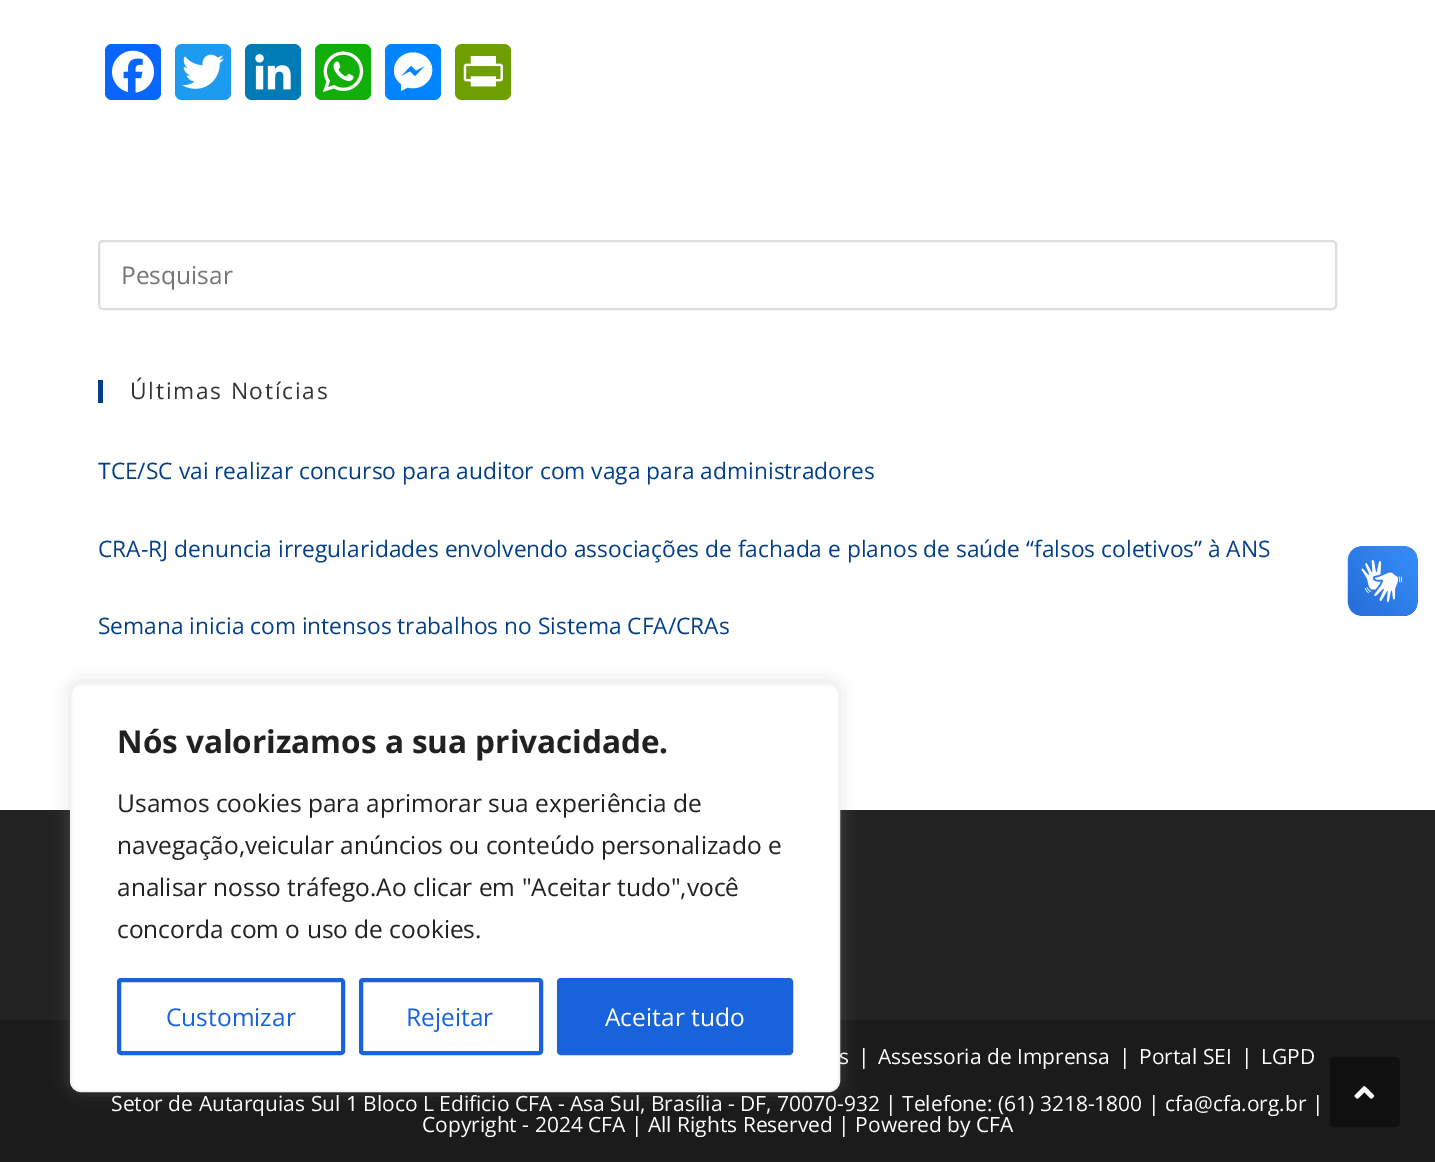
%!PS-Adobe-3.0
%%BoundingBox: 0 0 1435 1162
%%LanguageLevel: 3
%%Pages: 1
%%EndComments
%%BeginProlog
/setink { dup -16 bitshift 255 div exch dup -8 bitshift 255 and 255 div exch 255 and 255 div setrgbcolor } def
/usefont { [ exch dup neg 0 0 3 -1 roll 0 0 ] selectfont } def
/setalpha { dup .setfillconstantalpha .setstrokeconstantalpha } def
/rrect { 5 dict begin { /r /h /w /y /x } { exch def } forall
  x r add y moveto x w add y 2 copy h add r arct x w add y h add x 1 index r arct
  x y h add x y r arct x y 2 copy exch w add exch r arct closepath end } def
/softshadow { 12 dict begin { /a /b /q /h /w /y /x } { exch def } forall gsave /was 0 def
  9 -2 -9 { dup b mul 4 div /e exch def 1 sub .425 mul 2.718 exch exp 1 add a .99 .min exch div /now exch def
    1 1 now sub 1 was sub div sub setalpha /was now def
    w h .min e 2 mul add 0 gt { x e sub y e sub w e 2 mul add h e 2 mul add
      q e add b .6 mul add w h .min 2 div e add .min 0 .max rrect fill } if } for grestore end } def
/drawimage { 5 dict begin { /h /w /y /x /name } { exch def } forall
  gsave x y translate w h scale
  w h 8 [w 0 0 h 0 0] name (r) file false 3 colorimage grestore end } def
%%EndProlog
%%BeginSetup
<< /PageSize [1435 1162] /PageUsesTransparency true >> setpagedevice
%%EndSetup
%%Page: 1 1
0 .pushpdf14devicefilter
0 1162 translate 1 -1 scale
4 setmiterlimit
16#FFFFFF setink
0 0 1435 1162 rectfill
16#0866FF setink
105 44 56 56 7 rrect fill
(img1.raw) 112 50 42 43 drawimage
16#1D9BF0 setink
175 44 56 56 7 rrect fill
(img2.raw) 182 54 42 35 drawimage
16#007BB5 setink
245 44 56 56 7 rrect fill
(img3.raw) 255 54 36 36 drawimage
16#12AF0A setink
315 44 56 56 7 rrect fill
(img4.raw) 323 51 41 41 drawimage
16#0084FF setink
385 44 56 56 7 rrect fill
16#FFFFFF setink
413 52.5 moveto 395.5 52.5 387 73.5 401 84 curveto 401 91 lineto 407.5 87.5 lineto 425.5 92.5 441 71.5 426.5 57.5 curveto 423 54.5 418 52.5 413 52.5 curveto 415 76.5 moveto 410 71.5 lineto 400.5 76.5 lineto 411 65.5 lineto 416 70.5 lineto 425.5 65.5 lineto closepath fill
16#6D9F00 setink
455 44 56 56 7 rrect fill
(img5.raw) 463 56 40 31 drawimage
16#DDDDDD setink
2 setlinewidth
99 241 1237 68 4 rrect stroke
/OpenSans-Regular 24.5 usefont
16#757575 setink
121 284 moveto (Pesquisar) show
16#023F88 setink
98 380 5 23 rectfill
/OpenSans-Regular 22.75 usefont
16#333333 setink
130 399 moveto 1.75 0 (Últimas Notícias) ashow
16#023F88 setink
[
    [(TCE/SC vai realizar concurso para auditor com vaga para administradores) 98 479]
    [(CRA-RJ denuncia irregularidades envolvendo associações de fachada e planos de saúde “falsos coletivos” à ANS) 98 557]
    [(Semana inicia com intensos trabalhos no Sistema CFA/CRAs) 98 634]
] { aload pop moveto show } forall
16#222222 setink
0 810 1435 210 rectfill
16#1B1B1B setink
0 1020 1435 142 rectfill
/OpenSans-Regular 21 usefont
16#FFFFFF setink
[
    [(s) 839 1064]
    [(|) 858 1064]
    [(Assessoria de Imprensa) 878 1064]
    [(|) 1119 1064]
    [(Portal SEI) 1139 1064]
    [(|) 1241 1064]
    [(LGPD) 1261 1064]
    [(Setor de Autarquias Sul 1 Bloco L Edificio CFA - Asa Sul, Brasília - DF, 70070-932 | Telefone: \(61\) 3218-1800 | cfa@cfa.org.br |) 111 1111]
    [(Copyright - 2024 CFA | All Rights Reserved | Powered by CFA) 422 1132]
] { aload pop moveto show } forall
(img6.raw) 1347 546 71 70 drawimage
(img7.raw) 1348 546 70 70 drawimage
16#ACABAB setink
70 681 770 409 11 9 0.3 softshadow
16#FFFFFF setink
71 684 768 407 10 rrect gsave fill grestore
16#F4F4F4 setink
stroke
/OpenSans-Bold 31.5 usefont
16#212121 setink
117 753 moveto (Nós valorizamos a sua privacidade.) show
/OpenSans-Regular 24.5 usefont
[
    [(Usamos cookies para aprimorar sua experiência de) 117 812]
    [(navegação,veicular anúncios ou conteúdo personalizado e) 117 854]
    [(analisar nosso tráfego.Ao clicar em "Aceitar tudo",você) 117 896]
    [(concorda com o uso de cookies.) 117 938]
] { aload pop moveto show } forall
16#1863DC setink
4 setlinewidth
119 980 224 73 2 rrect stroke
166 1026 moveto (Customizar) show
361 980 180 73 2 rrect stroke
406 1026 moveto (Rejeitar) show
559 980 232 73 2 rrect gsave fill grestore
stroke
16#FFFFFF setink
605 1026 moveto (Aceitar tudo) show
16#101010 setink
1330 1057 70 70 4 rrect fill
(img8.raw) 1354 1086 21 13 drawimage
.poppdf14devicefilter showpage
%%EOF
